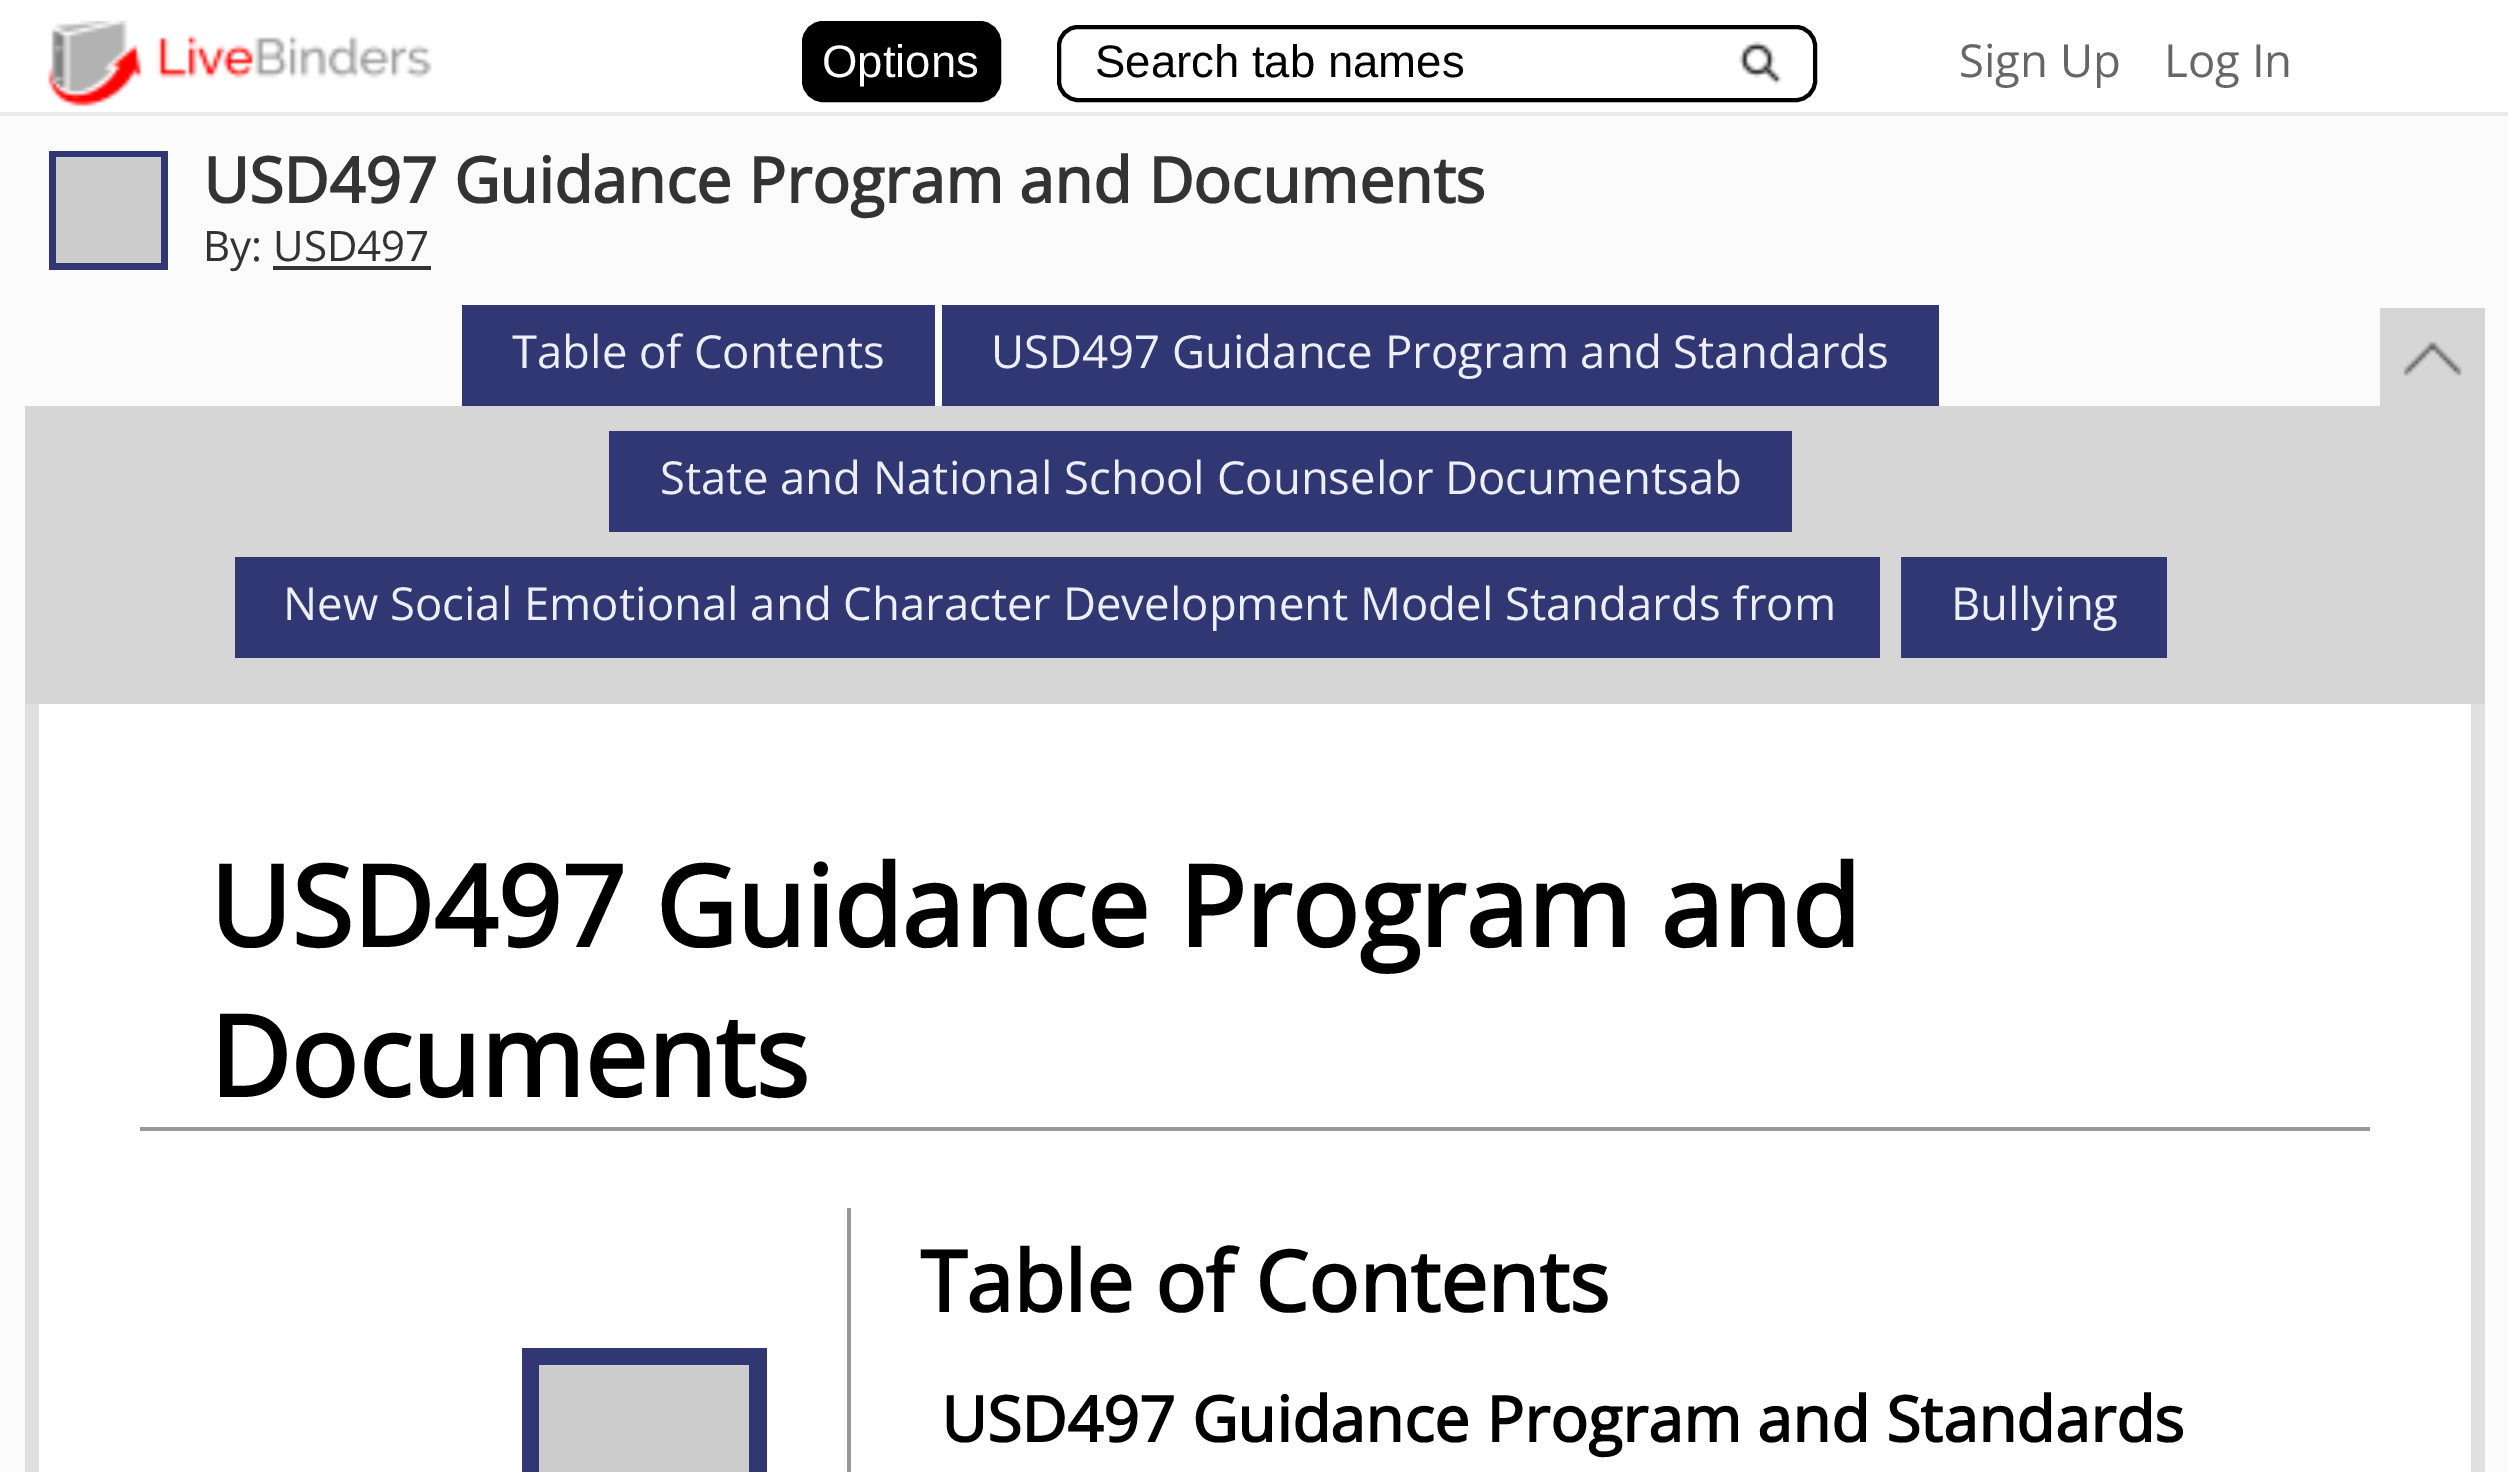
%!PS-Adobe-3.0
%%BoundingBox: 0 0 2508 1472
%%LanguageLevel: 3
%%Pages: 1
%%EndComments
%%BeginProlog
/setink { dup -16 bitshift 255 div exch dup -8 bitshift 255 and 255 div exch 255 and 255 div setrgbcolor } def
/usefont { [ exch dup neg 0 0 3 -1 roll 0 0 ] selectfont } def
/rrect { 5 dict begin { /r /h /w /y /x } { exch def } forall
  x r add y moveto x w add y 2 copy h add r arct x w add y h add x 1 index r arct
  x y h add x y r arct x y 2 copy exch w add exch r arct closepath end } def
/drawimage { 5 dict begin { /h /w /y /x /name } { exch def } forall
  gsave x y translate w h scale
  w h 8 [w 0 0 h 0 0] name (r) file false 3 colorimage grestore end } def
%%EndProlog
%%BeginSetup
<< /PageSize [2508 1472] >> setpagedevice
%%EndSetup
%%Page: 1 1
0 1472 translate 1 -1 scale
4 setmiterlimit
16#FBFBFB setink
0 0 2508 1472 rectfill
16#FFFFFF setink
0 0 2508 112 rectfill
16#EBEBEB setink
0 112 2508 4 rectfill
(img1.raw) 47 21 385 86 drawimage
16#000000 setink
804 23 195 77 19 rrect gsave fill grestore
4 setlinewidth
stroke
/LiberationSans-Regular 45.5 usefont
16#FFFFFF setink
822 77 moveto (Options) show
(img2.raw) 1738 41 45 44 drawimage
16#000000 setink
1059 27 756 73 19 rrect stroke
1095 77 moveto (Search tab names) show
/OpenSans-Regular 45.5 usefont
16#666666 setink
1959 77 moveto (Sign Up) show
2164 77 moveto (Log In) show
16#313773 setink
49 151 119 119 rectfill
16#CCCCCC setink
56 157 105 106 rectfill
/OpenSans-Bold 63 usefont
16#333333 setink
203 203 moveto (USD497 Guidance Program and Documents) show
/OpenSans-Regular 42 usefont
203 261 moveto (By: USD497) show
[
    [273 266 158 4 16#333333]
    [25 406 2460 298 16#D6D6D6]
    [462 305 473 101 16#313773]
] { aload pop setink rectfill } forall
/OpenSans-Regular 45.5 usefont
16#EDEFF8 setink
512 368 moveto (Table of Contents) show
16#313773 setink
942 305 997 101 rectfill
16#EDEFF8 setink
991 368 moveto (USD497 Guidance Program and Standards) show
16#313773 setink
609 431 1183 101 rectfill
16#EDEFF8 setink
660 494 moveto (State and National School Counselor Documentsab) show
16#313773 setink
235 557 1645 101 rectfill
16#EDEFF8 setink
283 620 moveto (New Social Emotional and Character Development Model Standards from) show
16#313773 setink
1901 557 266 101 rectfill
16#EDEFF8 setink
1951 620 moveto (Bullying) show
(img3.raw) 2380 308 105 98 drawimage
[
    [39 704 2432 768 16#FFFFFF]
    [2471 704 14 768 16#E0E0E0]
    [25 704 14 768 16#E0E0E0]
    [140 1127 2230 4 16#999999]
] { aload pop setink rectfill } forall
/OpenSans-Bold 112 usefont
16#000000 setink
209 947 moveto (USD497 Guidance Program and) show
209 1097 moveto (Documents) show
16#999999 setink
847 1208 4 264 rectfill
/OpenSans-Bold 84 usefont
16#000000 setink
920 1312 moveto (Table of Contents) show
16#313773 setink
522 1348 245 124 rectfill
16#CCCCCC setink
539 1365 210 107 rectfill
/OpenSans-Bold 63 usefont
16#000000 setink
941 1442 moveto (USD497 Guidance Program and Standards) show
showpage
%%EOF
